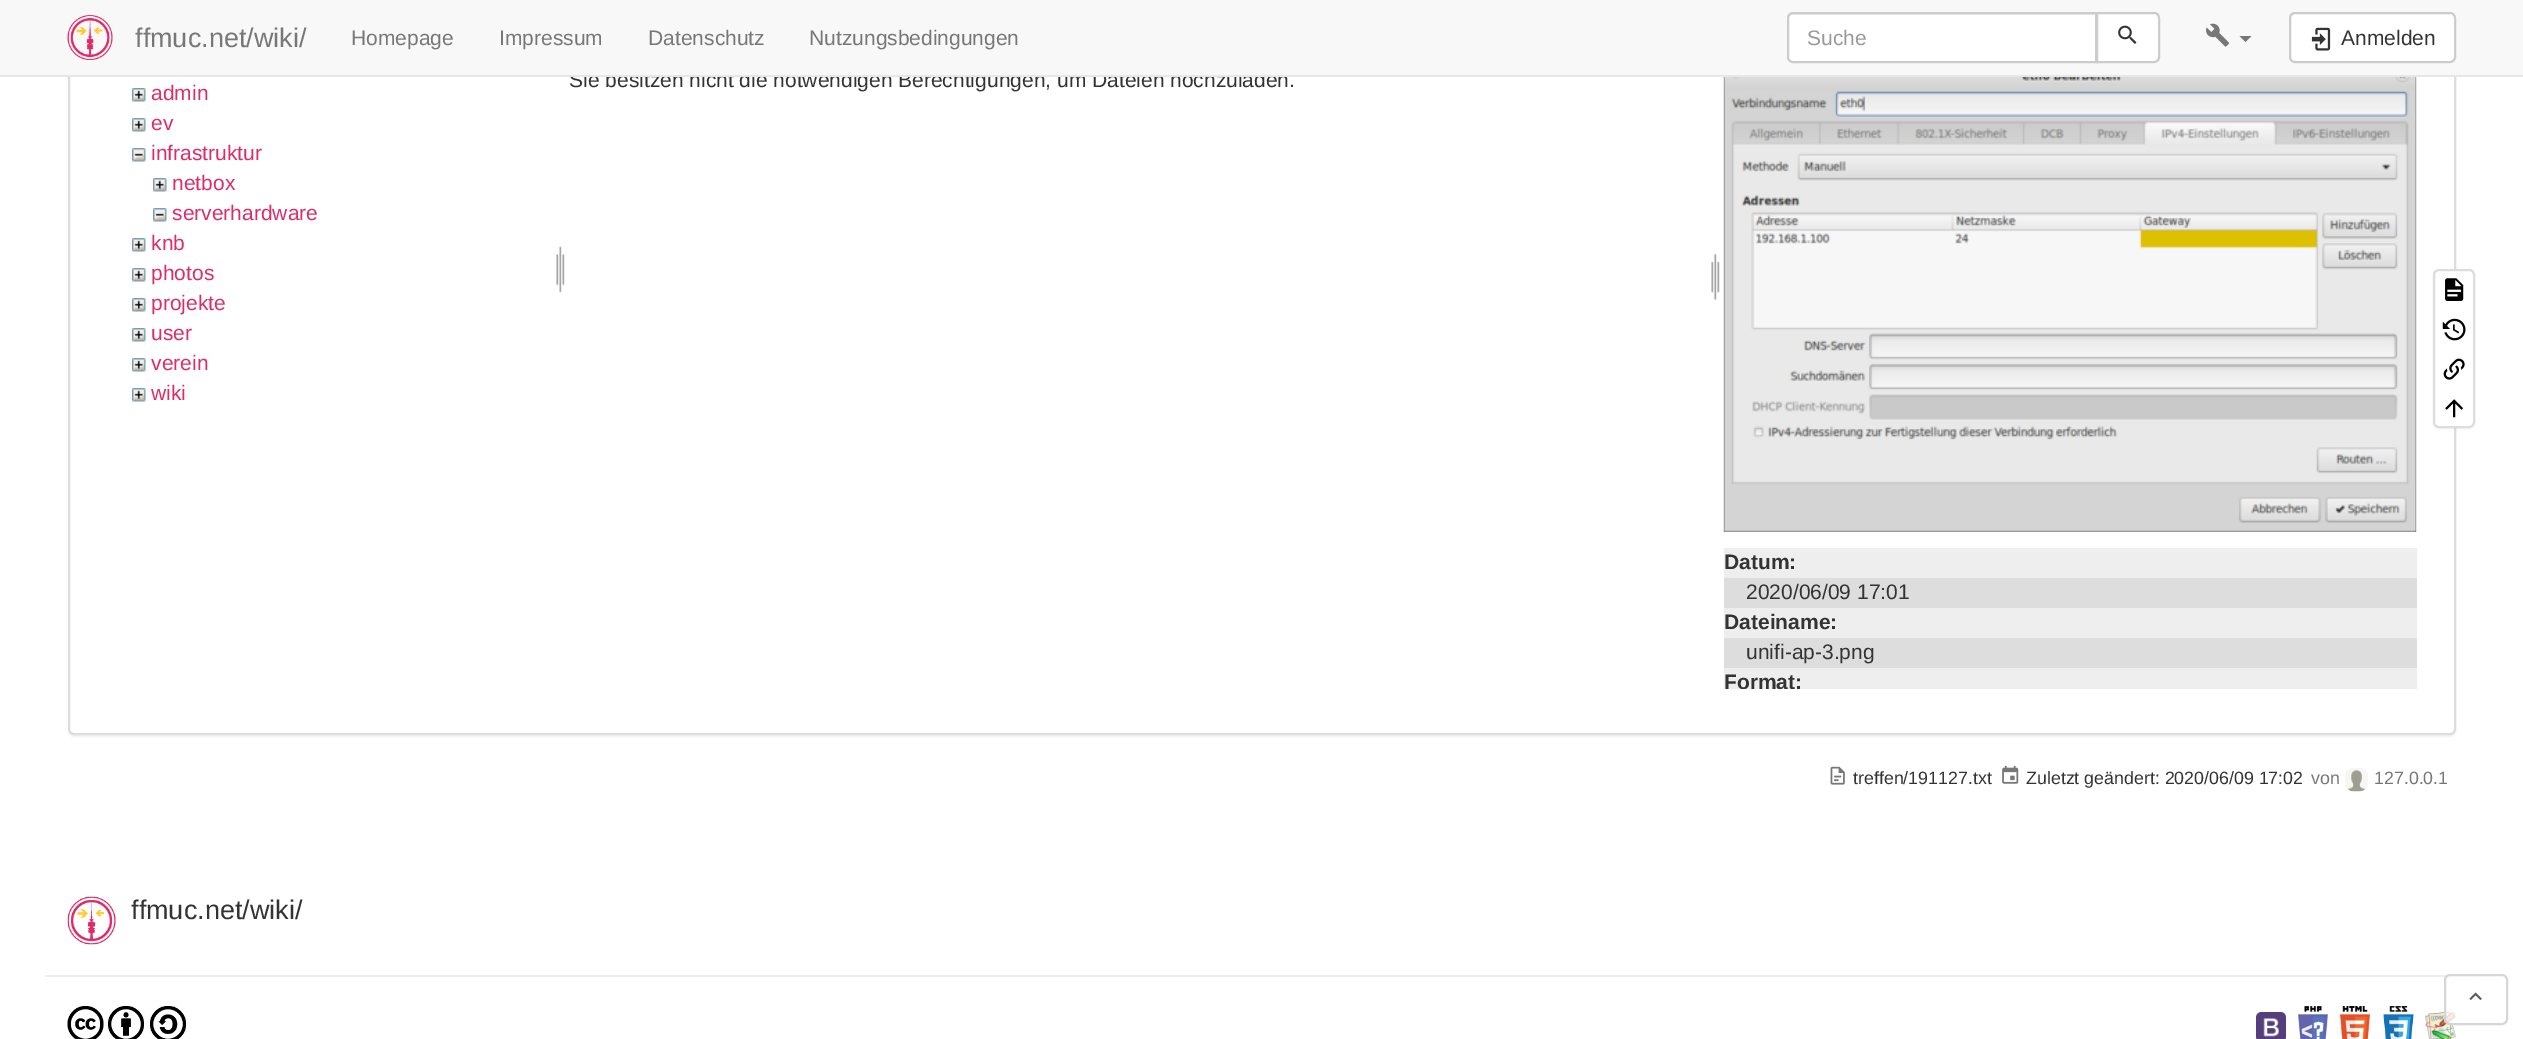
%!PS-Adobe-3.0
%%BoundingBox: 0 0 2523 1039
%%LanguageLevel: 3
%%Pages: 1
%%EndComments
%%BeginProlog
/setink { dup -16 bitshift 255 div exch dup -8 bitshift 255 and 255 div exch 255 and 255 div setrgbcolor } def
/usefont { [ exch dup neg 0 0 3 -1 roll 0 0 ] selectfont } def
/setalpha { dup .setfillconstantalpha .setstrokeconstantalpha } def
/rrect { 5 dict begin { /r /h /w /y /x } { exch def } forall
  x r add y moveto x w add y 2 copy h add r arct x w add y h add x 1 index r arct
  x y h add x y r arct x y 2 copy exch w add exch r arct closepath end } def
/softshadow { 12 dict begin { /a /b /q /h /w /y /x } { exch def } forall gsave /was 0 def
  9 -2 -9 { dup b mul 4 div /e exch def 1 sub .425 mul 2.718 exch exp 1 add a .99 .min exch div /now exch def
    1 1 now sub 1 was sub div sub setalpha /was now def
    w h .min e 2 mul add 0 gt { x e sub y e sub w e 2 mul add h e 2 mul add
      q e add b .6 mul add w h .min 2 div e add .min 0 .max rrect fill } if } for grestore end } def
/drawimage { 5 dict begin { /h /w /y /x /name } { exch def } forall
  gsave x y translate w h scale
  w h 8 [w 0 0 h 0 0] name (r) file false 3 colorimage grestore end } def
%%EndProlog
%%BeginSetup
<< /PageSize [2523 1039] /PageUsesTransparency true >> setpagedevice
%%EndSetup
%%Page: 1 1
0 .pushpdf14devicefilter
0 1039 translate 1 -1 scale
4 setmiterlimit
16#FFFFFF setink
0 0 2523 1039 rectfill
16#000000 setink
68 -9 2388 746 6 1 0.05 softshadow
16#FFFFFF setink
69 -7 2386 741 5 rrect gsave fill grestore
16#DDDDDD setink
2 setlinewidth
stroke
/LiberationSans-Regular 21 usefont
16#333333 setink
569 87 moveto (Sie besitzen nicht die notwendigen Berechtigungen, um Dateien hochzuladen.) show
16#F8F8F8 setink
0 0 2523 75 rectfill
16#E7E7E7 setink
0 75 2523 2 rectfill
(img1.raw) 67 15 46 45 drawimage
/LiberationSans-Regular 27 usefont
16#777777 setink
135 47 moveto (ffmuc.net/wiki/) show
/LiberationSans-Regular 21 usefont
[
    [(Homepage) 351 45]
    [(Impressum) 499 45]
    [(Datenschutz) 648 45]
    [(Nutzungsbedingungen) 809 45]
] { aload pop moveto show } forall
16#FFFFFF setink
1793 12 moveto 2097 12 lineto 2097 63 lineto 1793 63 lineto 1789.5 63 1787 60.5 1787 57 curveto 1787 18 lineto 1787 14.5 1789.5 12 1793 12 curveto closepath fill
16#ECECEC setink
1792 15 moveto 2096 15 lineto 2096 14 lineto 1793 14 lineto 1790 14 1788 17 1788 20 curveto 1788 17 1790 15 1792 15 curveto closepath fill
16#CCCCCC setink
1793 13 moveto 2096 13 lineto 2096 62 lineto 1793 62 lineto 1790 62 1788 60 1788 57 curveto 1788 18 lineto 1788 15 1790 13 1793 13 curveto closepath stroke
16#999999 setink
1807 45 moveto (Suche) show
16#FFFFFF setink
2097 13 moveto 2154 13 lineto 2157 13 2159 15 2159 18 curveto 2159 57 lineto 2159 60 2157 62 2154 62 curveto 2097 62 lineto closepath gsave fill grestore
16#CCCCCC setink
stroke
(img2.raw) 2118 25 19 19 drawimage
(img3.raw) 2206 23 24 24 drawimage
16#777777 setink
2239.5 36 moveto 2251.5 36 lineto 2245.5 42 lineto closepath fill
16#FFFFFF setink
2290 13 165 49 5 rrect gsave fill grestore
16#CCCCCC setink
stroke
(img4.raw) 2311 27 20 24 drawimage
16#333333 setink
2341 45 moveto (Anmelden) show
(img5.raw) 1711 253 9 47 drawimage
(img6.raw) 132 88 14 14 drawimage
16#DE2C68 setink
151 100 moveto (admin) show
(img6.raw) 132 118 14 14 drawimage
151 130 moveto (ev) show
(img7.raw) 132 148 14 14 drawimage
151 160 moveto (infrastruktur) show
(img6.raw) 153 178 14 14 drawimage
172 190 moveto (netbox) show
(img7.raw) 153 208 14 14 drawimage
172 220 moveto (serverhardware) show
(img6.raw) 132 238 14 14 drawimage
151 250 moveto (knb) show
(img6.raw) 132 268 14 14 drawimage
151 280 moveto (photos) show
(img6.raw) 132 298 14 14 drawimage
151 310 moveto (projekte) show
(img6.raw) 132 328 14 14 drawimage
151 340 moveto (user) show
(img6.raw) 132 358 14 14 drawimage
151 370 moveto (verein) show
(img6.raw) 132 388 14 14 drawimage
151 400 moveto (wiki) show
(img8.raw) 556 245 9 48 drawimage
(img9.raw) 1723 77 694 455 drawimage
16#EEEEEE setink
1724 548 693 30 rectfill
/LiberationSans-Bold 21 usefont
16#333333 setink
1724 569 moveto (Datum:) show
16#DDDDDD setink
1724 578 693 30 rectfill
/LiberationSans-Regular 21 usefont
16#333333 setink
1746 599 moveto (2020/06/09 17:01) show
16#EEEEEE setink
1724 608 693 30 rectfill
/LiberationSans-Bold 21 usefont
16#333333 setink
1724 629 moveto (Dateiname:) show
16#DDDDDD setink
1724 638 693 30 rectfill
/LiberationSans-Regular 21 usefont
16#333333 setink
1746 659 moveto (unifi-ap-3.png) show
16#EEEEEE setink
1724 668 693 21 rectfill
gsave
1724 65 693 624 rectclip
/LiberationSans-Bold 21 usefont
16#333333 setink
1724 689 moveto (Format:) show
grestore
16#000000 setink
2433 270 42 159 6 1 0.05 softshadow
16#FFFFFF setink
2434 270 40 157 5 rrect gsave fill grestore
16#DDDDDD setink
stroke
(img10.raw) 2445 278 19 23 drawimage
(img11.raw) 2442 318 24 23 drawimage
(img12.raw) 2443 358 22 22 drawimage
(img13.raw) 2445 399 18 19 drawimage
(img14.raw) 1830 766 15 19 drawimage
/LiberationSans-Regular 17.8 usefont
16#333333 setink
1853 784 moveto (treffen/191127.txt) show
(img15.raw) 2002 765 17 19 drawimage
2026 784 moveto (Zuletzt geändert: 2020/06/09 17:02) show
16#777777 setink
2311 784 moveto (von) show
(img16.raw) 2345 768 23 24 drawimage
2374 784 moveto (127.0.0.1) show
(img17.raw) 67 896 49 49 drawimage
/LiberationSans-Regular 27 usefont
16#333333 setink
131 919 moveto (ffmuc.net/wiki/) show
16#EEEEEE setink
45 975 2433 2 rectfill
(img18.raw) 67 1006 37 33 drawimage
(img19.raw) 108 1006 36 33 drawimage
(img20.raw) 150 1006 36 33 drawimage
(img21.raw) 2256 1012 30 27 drawimage
(img22.raw) 2298 1006 30 33 drawimage
(img23.raw) 2340 1006 30 33 drawimage
(img24.raw) 2383 1006 31 33 drawimage
(img25.raw) 2425 1012 31 27 drawimage
0.8 setalpha
16#FFFFFF setink
2444 974 64 51 6 rrect fill
16#CCCCCC setink
2445 975 62 49 5 rrect stroke
1 setalpha
(img26.raw) 2469 992 13 9 drawimage
.poppdf14devicefilter showpage
%%EOF
